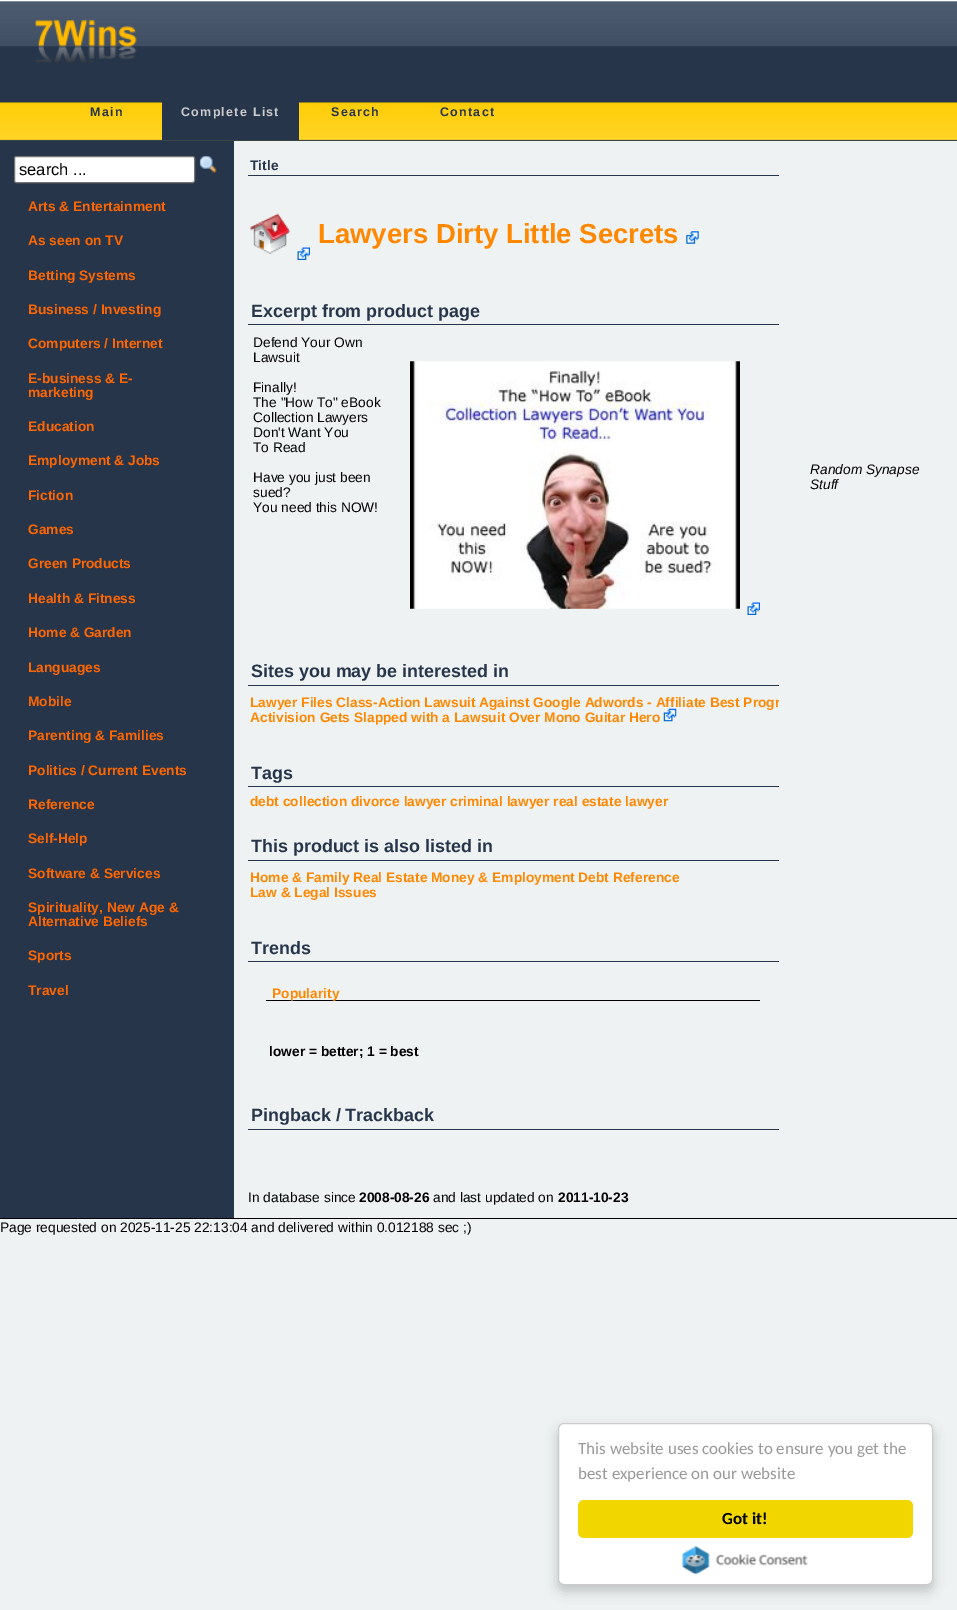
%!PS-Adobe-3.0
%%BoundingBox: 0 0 957 1610
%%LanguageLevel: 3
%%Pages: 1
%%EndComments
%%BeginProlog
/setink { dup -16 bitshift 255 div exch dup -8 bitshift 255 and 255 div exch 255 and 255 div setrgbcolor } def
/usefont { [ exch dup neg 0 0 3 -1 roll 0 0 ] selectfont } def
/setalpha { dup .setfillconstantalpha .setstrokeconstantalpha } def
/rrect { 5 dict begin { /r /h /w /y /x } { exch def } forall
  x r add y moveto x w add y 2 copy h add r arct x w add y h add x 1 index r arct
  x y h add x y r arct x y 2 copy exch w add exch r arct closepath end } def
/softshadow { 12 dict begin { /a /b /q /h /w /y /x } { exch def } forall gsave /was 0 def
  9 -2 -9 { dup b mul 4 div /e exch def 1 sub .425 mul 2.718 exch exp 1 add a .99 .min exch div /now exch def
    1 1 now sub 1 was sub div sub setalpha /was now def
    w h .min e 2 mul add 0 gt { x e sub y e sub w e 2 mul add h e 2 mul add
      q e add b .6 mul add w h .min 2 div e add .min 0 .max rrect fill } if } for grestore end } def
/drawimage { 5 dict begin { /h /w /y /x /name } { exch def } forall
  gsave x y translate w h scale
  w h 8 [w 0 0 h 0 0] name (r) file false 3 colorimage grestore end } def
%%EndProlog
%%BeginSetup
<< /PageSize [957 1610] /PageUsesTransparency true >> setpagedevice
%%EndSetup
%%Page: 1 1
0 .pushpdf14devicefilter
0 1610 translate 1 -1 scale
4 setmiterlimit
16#EFF2F3 setink
0 0 957 1610 rectfill
(img1.raw) 0 0 957 102 drawimage
(img2.raw) 35 19 102 44 drawimage
(img3.raw) 0 102 957 39 drawimage
/LiberationSans-Bold 12.5 usefont
16#26354A setink
90 116 moveto 1.25 0 (Main) ashow
162 102 137 38 rectfill
16#CCCCCC setink
181 116 moveto 1.25 0 (Complete List) ashow
16#26354A setink
331 116 moveto 1.25 0 (Search) ashow
440 116 moveto 1.25 0 (Contact) ashow
0 141 234 1077 rectfill
16#FFFFFF setink
14.5 156.5 180 26 2 rrect gsave fill grestore
16#767676 setink
stroke
/LiberationSans-Regular 16.5 usefont
16#000000 setink
19 175 moveto (search ...) show
(img4.raw) 199 156 18 18 drawimage
/LiberationSans-Bold 13.75 usefont
16#FF6600 setink
[
    [(Arts & Entertainment) 28 211]
    [(As seen on TV) 28 245]
    [(Betting Systems) 28 280]
    [(Business / Investing) 28 314]
    [(Computers / Internet) 28 348]
    [(E-business & E-) 28 383]
    [(marketing) 28 397]
    [(Education) 28 431]
    [(Employment & Jobs) 28 465]
    [(Fiction) 28 500]
    [(Games) 28 534]
    [(Green Products) 28 568]
    [(Health & Fitness) 28 603]
    [(Home & Garden) 28 637]
    [(Languages) 28 672]
    [(Mobile) 28 706]
    [(Parenting & Families) 28 740]
    [(Politics / Current Events) 28 775]
    [(Reference) 28 809]
    [(Self-Help) 28 843]
    [(Software & Services) 28 878]
    [(Spirituality, New Age &) 28 912]
    [(Alternative Beliefs) 28 926]
    [(Sports) 28 960]
    [(Travel) 28 995]
] { aload pop moveto show } forall
16#26354A setink
248 175 531 1 rectfill
250 170 moveto (Title) show
(img5.raw) 250 213 40 41 drawimage
/LiberationSans-Bold 27.5 usefont
16#FF8800 setink
318 243 moveto (Lawyers Dirty Little Secrets) show
(img6.raw) 686 231 13 13 drawimage
(img7.raw) 297 247 13 13 drawimage
16#26354A setink
248 324 531 1 rectfill
/LiberationSans-Bold 17.9 usefont
251 317 moveto (Excerpt from product page) show
/LiberationSans-Regular 13.75 usefont
16#000000 setink
[
    [(Defend Your Own) 253 347]
    [(Lawsuit) 253 362]
    [(Finally!) 253 392]
] { aload pop moveto show } forall
(img8.raw) 410 361 330 248 drawimage
(img7.raw) 747 602 13 13 drawimage
[
    [(The "How To" eBook) 253 407]
    [(Collection Lawyers) 253 422]
    [(Don't Want You) 253 437]
    [(To Read) 253 452]
    [(Have you just been) 253 482]
    [(sued?) 253 497]
    [(You need this NOW!) 253 512]
] { aload pop moveto show } forall
16#26354A setink
248 685 531 1 rectfill
/LiberationSans-Bold 17.9 usefont
251 677 moveto (Sites you may be interested in) show
gsave
248 155 531 1049 rectclip
/LiberationSans-Bold 13.75 usefont
16#FF8800 setink
250 707 moveto (Lawyer Files Class-Action Lawsuit Against Google Adwords - Affiliate Best Progr) show
grestore
/LiberationSans-Bold 13.75 usefont
16#FF8800 setink
250 722 moveto (Activision Gets Slapped with a Lawsuit Over Mono Guitar Hero) show
(img9.raw) 663 708 14 14 drawimage
16#26354A setink
248 786 531 1 rectfill
/LiberationSans-Bold 17.9 usefont
251 779 moveto (Tags) show
/LiberationSans-Bold 13.75 usefont
16#FF8800 setink
250 806 moveto (debt collection divorce lawyer criminal lawyer real estate lawyer) show
16#26354A setink
248 860 531 1 rectfill
/LiberationSans-Bold 17.9 usefont
251 852 moveto (This product is also listed in) show
/LiberationSans-Bold 13.75 usefont
16#FF8800 setink
250 882 moveto (Home & Family Real Estate Money & Employment Debt Reference) show
250 897 moveto (Law & Legal Issues) show
16#26354A setink
248 961 531 1 rectfill
/LiberationSans-Bold 17.9 usefont
251 954 moveto (Trends) show
16#000000 setink
266 1000 494 1 rectfill
/LiberationSans-Bold 13.75 usefont
16#FF8800 setink
272 998 moveto (Popularity) show
16#000000 setink
269 1056 moveto (lower = better; 1 = best) show
16#26354A setink
248 1129 531 1 rectfill
/LiberationSans-Bold 17.9 usefont
251 1121 moveto (Pingback / Trackback) show
/LiberationSans-Regular 13.75 usefont
16#000000 setink
248 1202 moveto (In database since) show
/LiberationSans-Bold 13.75 usefont
359 1202 moveto (2008-08-26) show
/LiberationSans-Regular 13.75 usefont
433 1202 moveto (and last updated on) show
/LiberationSans-Bold 13.75 usefont
558 1202 moveto (2011-10-23) show
/LiberationSans-Italic 13.75 usefont
810 474 moveto (Random Synapse) show
810 489 moveto (Stuff) show
0 1218 957 1 rectfill
/LiberationSans-Regular 13.75 usefont
0 1232 moveto (Page requested on 2025-11-25 22:13:04 and delivered within 0.012188 sec ;\)) show
558 1429 375 162 6 6 0.2 softshadow
16#FFFFFF setink
558.5 1423.5 374 161 5.5 rrect gsave fill grestore
16#CCCCCC setink
stroke
/Carlito-Regular 17 usefont
16#999999 setink
578 1454 moveto (This website uses cookies to ensure you get the) show
578 1479 moveto (best experience on our website) show
16#F1D600 setink
578 1500 335 38 6 rrect fill
/Carlito-Bold 17 usefont
16#000000 setink
722 1524 moveto (Got it!) show
(img10.raw) 682 1546 126 29 drawimage
.poppdf14devicefilter showpage
%%EOF
